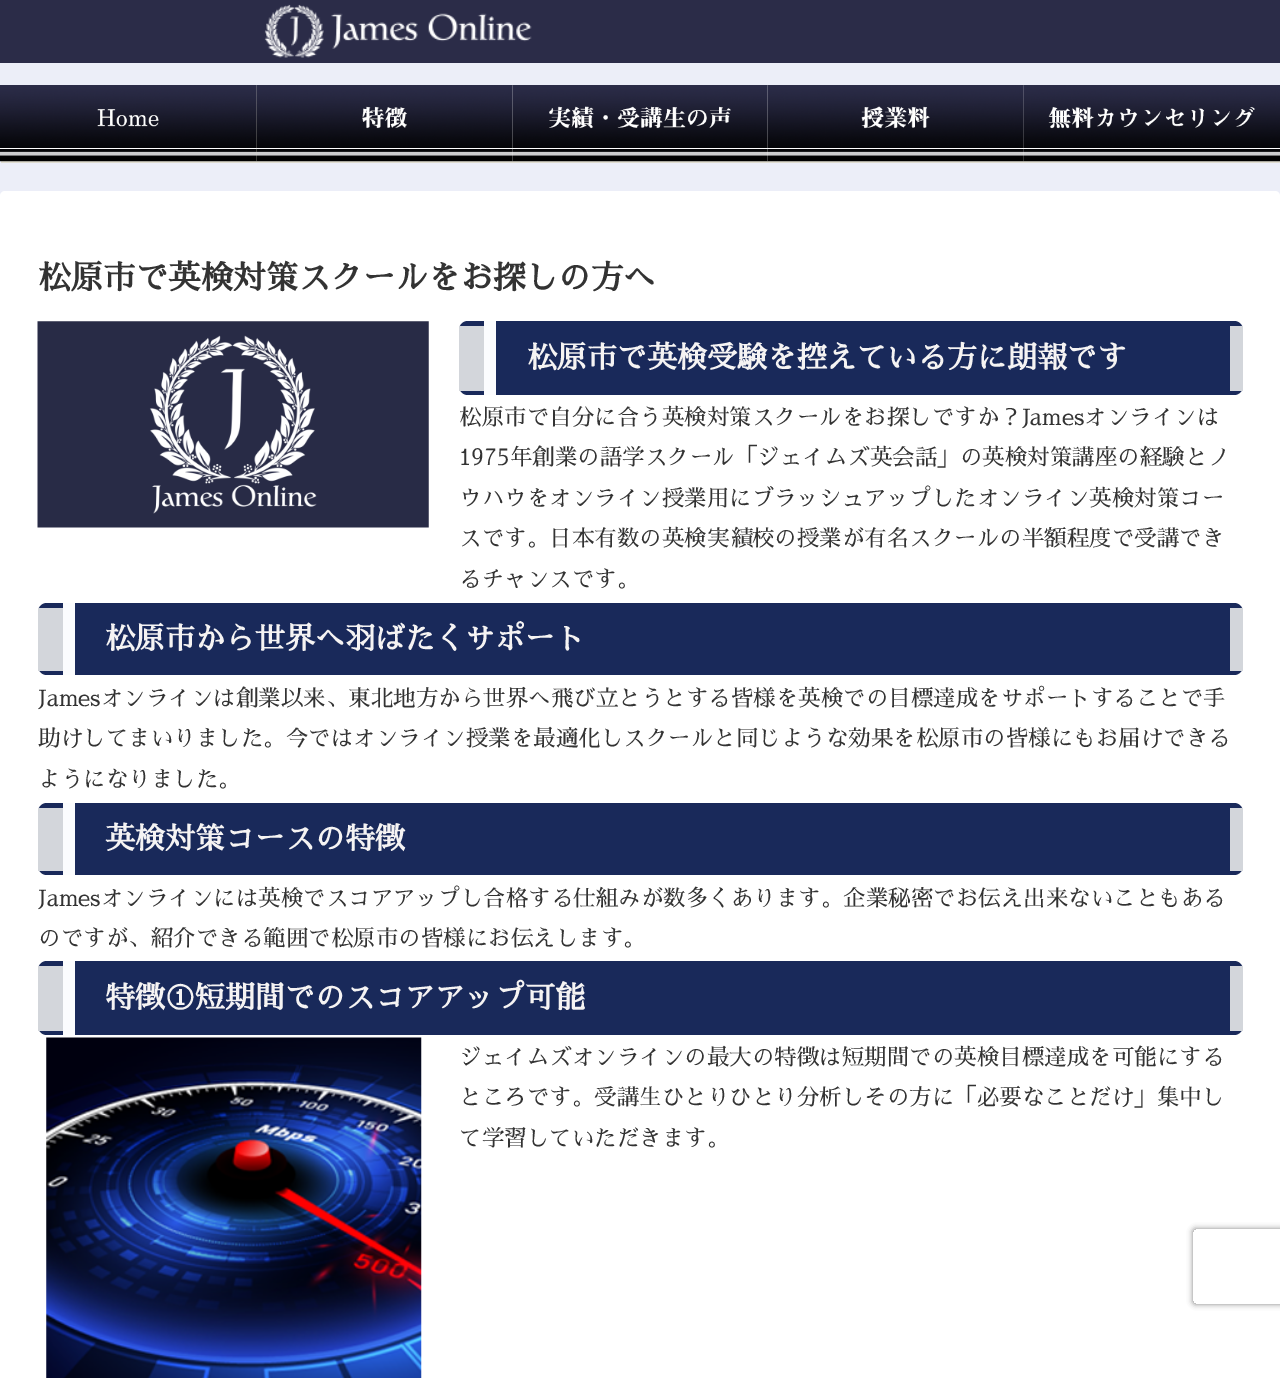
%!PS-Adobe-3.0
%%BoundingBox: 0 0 1280 1378
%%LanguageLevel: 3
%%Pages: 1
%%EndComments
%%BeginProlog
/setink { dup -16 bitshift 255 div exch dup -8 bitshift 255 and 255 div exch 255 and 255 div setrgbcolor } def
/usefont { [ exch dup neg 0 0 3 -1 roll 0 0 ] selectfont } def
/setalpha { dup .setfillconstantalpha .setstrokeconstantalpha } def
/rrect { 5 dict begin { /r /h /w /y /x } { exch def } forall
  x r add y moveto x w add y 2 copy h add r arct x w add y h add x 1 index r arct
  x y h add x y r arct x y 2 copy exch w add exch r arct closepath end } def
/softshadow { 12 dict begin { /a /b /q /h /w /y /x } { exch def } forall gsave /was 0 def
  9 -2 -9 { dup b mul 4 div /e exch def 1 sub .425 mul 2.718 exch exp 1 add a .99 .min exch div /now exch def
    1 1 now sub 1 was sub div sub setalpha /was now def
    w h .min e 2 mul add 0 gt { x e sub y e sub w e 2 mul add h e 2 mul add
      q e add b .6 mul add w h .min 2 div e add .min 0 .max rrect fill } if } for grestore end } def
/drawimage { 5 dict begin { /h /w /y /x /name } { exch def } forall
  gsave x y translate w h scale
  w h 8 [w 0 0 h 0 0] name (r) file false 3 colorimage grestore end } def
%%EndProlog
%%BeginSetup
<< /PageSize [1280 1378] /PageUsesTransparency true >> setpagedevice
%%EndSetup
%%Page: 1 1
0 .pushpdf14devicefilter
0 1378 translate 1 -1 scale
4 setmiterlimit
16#ECEEF8 setink
0 0 1280 1378 rectfill
16#2B2C48 setink
0 0 1280 63 rectfill
(img1.raw) 264 4 268 54 drawimage
16#E0DDD1 setink
1 161 moveto 1 163 lineto 258 163 lineto 258 86 lineto 256 86 lineto 256 161 lineto closepath fill
(img2.raw) 0 85 257 77 drawimage
258 161 moveto 258 163 lineto 514 163 lineto 514 86 lineto 512 86 lineto 512 161 lineto closepath fill
(img3.raw) 256 85 257 77 drawimage
514 161 moveto 514 163 lineto 769 163 lineto 769 86 lineto 768 86 lineto 768 161 lineto closepath fill
(img4.raw) 512 85 256 77 drawimage
769 161 moveto 769 163 lineto 1025 163 lineto 1025 86 lineto 1024 86 lineto 1024 161 lineto closepath fill
(img5.raw) 767 85 257 77 drawimage
1025 161 moveto 1025 163 lineto 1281 163 lineto 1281 86 lineto 1280 86 lineto 1280 161 lineto closepath fill
(img6.raw) 1023 85 257 77 drawimage
16#FFFFFF setink
0 191 1280 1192 5 rrect fill
/SawarabiMincho-Bold 32.5 usefont
16#333333 setink
38 289 moveto (松原市で英検対策スクールをお探しの方へ) show
(img7.raw) 37 321 392 207 drawimage
16#19295A setink
459 321 784 74 9 rrect fill
[
    [1230 326 13 65 16#D3D6DB]
    [459 326 25 65 16#D3D6DB]
    [484 321 12 74 16#FBFCFE]
] { aload pop setink rectfill } forall
/SawarabiMincho-Bold 30 usefont
16#F5F3F3 setink
527 368 moveto (松原市で英検受験を控えている方に朗報です) show
/SawarabiMincho-Regular 22.5 usefont
16#333333 setink
[
    [(松原市で自分に合う英検対策スクールをお探しですか？Jamesオンラインは) 459 425]
    [(1975年創業の語学スクール「ジェイムズ英会話」の英検対策講座の経験とノ) 459 465]
    [(ウハウをオンライン授業用にブラッシュアップしたオンライン英検対策コー) 459 506]
    [(スです。日本有数の英検実績校の授業が有名スクールの半額程度で受講でき) 459 546]
    [(るチャンスです。) 459 587]
] { aload pop moveto show } forall
16#19295A setink
38 603 1205 72 9 rrect fill
[
    [1230 608 13 63 16#D3D6DB]
    [38 608 25 63 16#D3D6DB]
    [63 603 12 72 16#FBFCFE]
] { aload pop setink rectfill } forall
/SawarabiMincho-Bold 30 usefont
16#F5F3F3 setink
105 649 moveto (松原市から世界へ羽ばたくサポート) show
/SawarabiMincho-Regular 22.5 usefont
16#333333 setink
[
    [(Jamesオンラインは創業以来、東北地方から世界へ飛び立とうとする皆様を英検での目標達成をサポートすることで手) 38 706]
    [(助けしてまいりました。今ではオンライン授業を最適化しスクールと同じような効果を松原市の皆様にもお届けできる) 38 746]
    [(ようになりました。) 38 787]
] { aload pop moveto show } forall
16#19295A setink
38 803 1205 72 9 rrect fill
[
    [1230 808 13 63 16#D3D6DB]
    [38 808 25 63 16#D3D6DB]
    [63 803 12 72 16#FBFCFE]
] { aload pop setink rectfill } forall
/SawarabiMincho-Bold 30 usefont
16#F5F3F3 setink
105 849 moveto (英検対策コースの特徴) show
/SawarabiMincho-Regular 22.5 usefont
16#333333 setink
38 906 moveto (Jamesオンラインには英検でスコアアップし合格する仕組みが数多くあります。企業秘密でお伝え出来ないこともある) show
38 946 moveto (のですが、紹介できる範囲で松原市の皆様にお伝えします。) show
16#19295A setink
38 961 1205 74 9 rrect fill
[
    [1230 966 13 65 16#D3D6DB]
    [38 966 25 65 16#D3D6DB]
    [63 961 12 74 16#FBFCFE]
] { aload pop setink rectfill } forall
/SawarabiMincho-Bold 30 usefont
16#F5F3F3 setink
105 1008 moveto (特徴①短期間でのスコアアップ可能) show
(img8.raw) 46 1037 376 341 drawimage
/SawarabiMincho-Regular 22.5 usefont
16#333333 setink
[
    [(ジェイムズオンラインの最大の特徴は短期間での英検目標達成を可能にする) 459 1065]
    [(ところです。受講生ひとりひとり分析しその方に「必要なことだけ」集中し) 459 1105]
    [(て学習していただきます。) 459 1146]
] { aload pop moveto show } forall
gsave
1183 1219 moveto 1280 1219 lineto 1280 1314 lineto 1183 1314 lineto closepath 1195.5 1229 moveto 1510.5 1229 lineto 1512 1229 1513 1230 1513 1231.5 curveto 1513 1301.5 lineto 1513 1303 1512 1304 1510.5 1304 curveto 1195.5 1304 lineto 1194 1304 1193 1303 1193 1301.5 curveto 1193 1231.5 lineto 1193 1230 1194 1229 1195.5 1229 curveto closepath eoclip newpath
16#808080 setink
1193 1229 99 75 2.5 3 1 softshadow
grestore
.poppdf14devicefilter showpage
%%EOF
